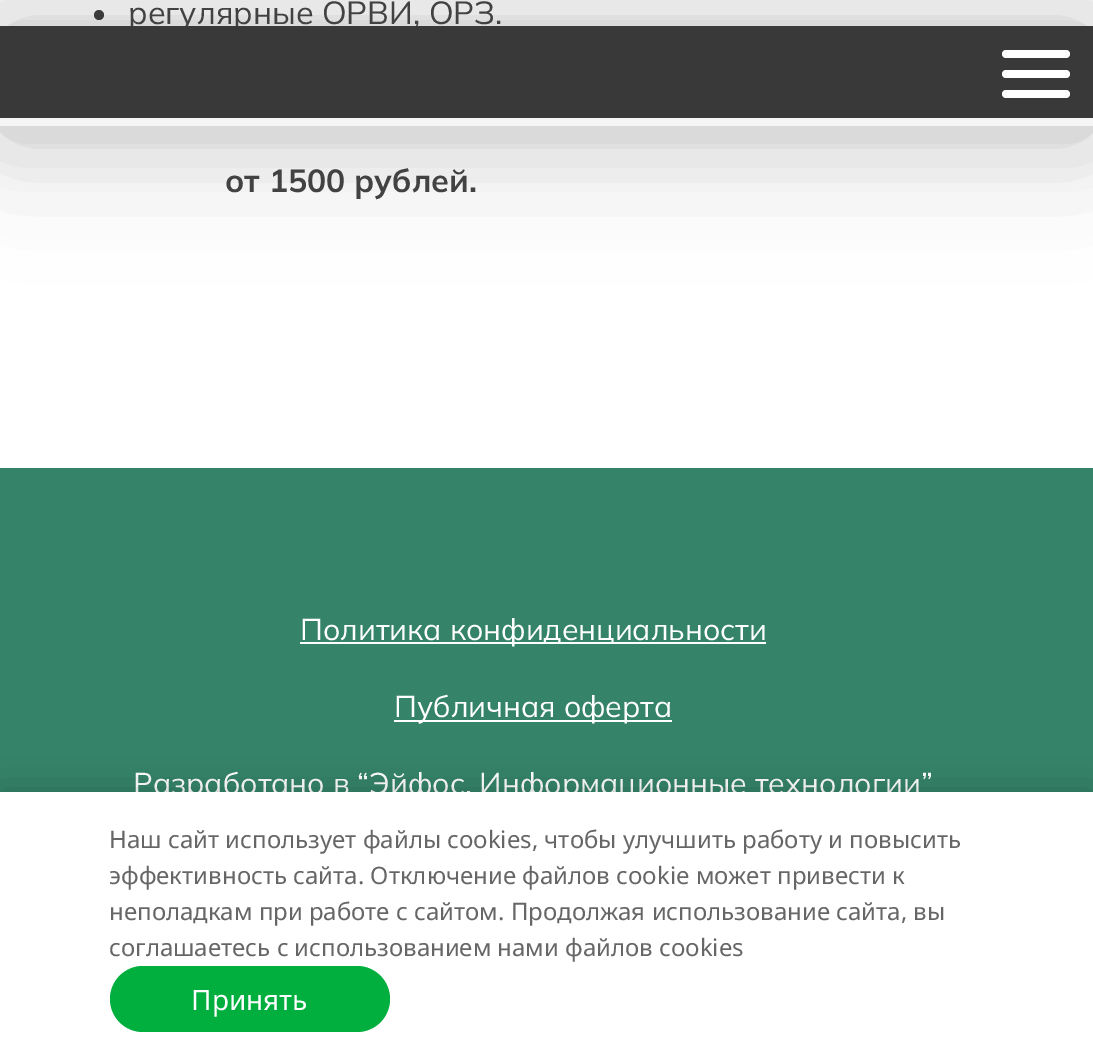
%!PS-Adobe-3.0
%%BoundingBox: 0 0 1093 1062
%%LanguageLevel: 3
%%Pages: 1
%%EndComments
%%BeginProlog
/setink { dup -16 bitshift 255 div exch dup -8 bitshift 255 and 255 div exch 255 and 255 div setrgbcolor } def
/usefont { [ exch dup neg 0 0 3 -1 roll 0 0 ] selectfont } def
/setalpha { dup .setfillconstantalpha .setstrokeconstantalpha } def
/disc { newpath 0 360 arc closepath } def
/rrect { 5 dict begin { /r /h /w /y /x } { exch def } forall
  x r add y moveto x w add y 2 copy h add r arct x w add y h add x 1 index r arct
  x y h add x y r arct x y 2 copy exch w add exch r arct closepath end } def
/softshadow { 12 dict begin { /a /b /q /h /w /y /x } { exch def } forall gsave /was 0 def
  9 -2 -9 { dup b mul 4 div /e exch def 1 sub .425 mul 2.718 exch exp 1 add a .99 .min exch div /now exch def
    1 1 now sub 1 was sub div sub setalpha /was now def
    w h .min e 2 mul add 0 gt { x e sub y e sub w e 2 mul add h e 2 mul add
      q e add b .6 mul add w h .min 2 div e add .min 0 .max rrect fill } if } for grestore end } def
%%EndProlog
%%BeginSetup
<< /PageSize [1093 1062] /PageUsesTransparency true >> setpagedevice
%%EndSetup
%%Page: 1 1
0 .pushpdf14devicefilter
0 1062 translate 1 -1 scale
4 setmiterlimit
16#FFFFFF setink
0 0 1093 1062 rectfill
16#424242 setink
99 15 5 disc fill
16#000000 setink
0 32 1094 100 0 68 0.17 softshadow
0 32 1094 100 0 48 0.13 softshadow
/Mulish-Regular 32 usefont
16#424242 setink
128 24 moveto (регулярные ОРВИ, ОРЗ.) show
16#3A3939 setink
0 26 1093 92 rectfill
16#F5F5F5 setink
0 118 1093 8 rectfill
16#FFFFFF setink
1002 50 68 8 4 rrect fill
1002 70 68 8 4 rrect fill
1002 90 68 8 4 rrect fill
/Mulish-Bold 32 usefont
16#424242 setink
225 192 moveto (от 1500 рублей.) show
16#35846A setink
0 468 1093 324 rectfill
16#FFFFFF setink
300 642 466 2 rectfill
/Mulish-Regular 30 usefont
300 640 moveto (Политика конфиденциальности) show
394 720 278 2 rectfill
394 717 moveto (Публичная оферта) show
133 794 moveto (Разработано в “Эйфос. Информационные технологии”) show
16#000000 setink
0 792 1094 270 0 20 0.2 softshadow
16#FFFFFF setink
0 792 1093 270 rectfill
/NotoSans-Regular 24 usefont
16#666666 setink
[
    [(Наш сайт использует файлы cookies, чтобы улучшить работу и повысить) 109 848]
    [(эффективность сайта. Отключение файлов cookie может привести к) 109 884]
    [(неполадкам при работе с сайтом. Продолжая использование сайта, вы) 109 920]
    [(соглашаетесь c использованием нами файлов cookies) 109 956]
] { aload pop moveto show } forall
16#00AF3E setink
110 966 280 66 33 rrect fill
/NotoSans-Regular 28 usefont
16#FFFFFF setink
191 1010 moveto (Принять) show
.poppdf14devicefilter showpage
%%EOF
